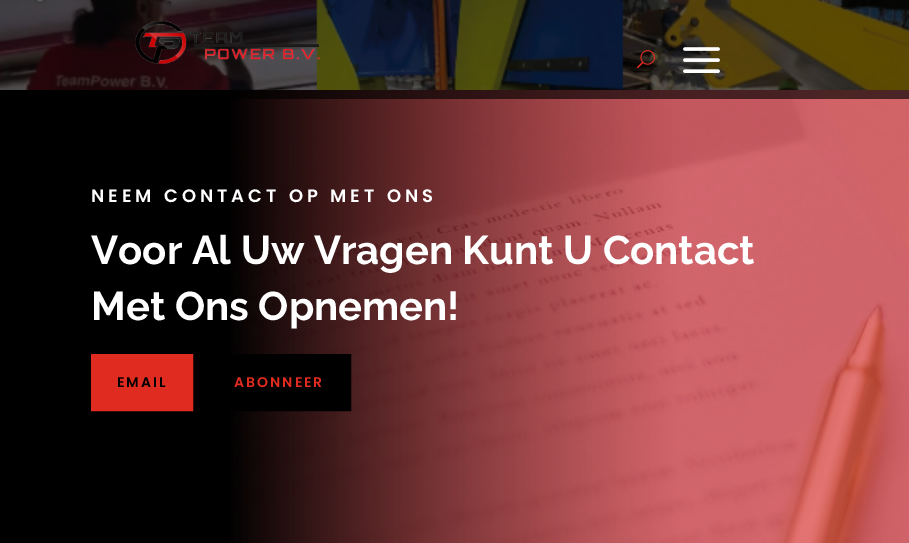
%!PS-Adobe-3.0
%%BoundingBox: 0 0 909 543
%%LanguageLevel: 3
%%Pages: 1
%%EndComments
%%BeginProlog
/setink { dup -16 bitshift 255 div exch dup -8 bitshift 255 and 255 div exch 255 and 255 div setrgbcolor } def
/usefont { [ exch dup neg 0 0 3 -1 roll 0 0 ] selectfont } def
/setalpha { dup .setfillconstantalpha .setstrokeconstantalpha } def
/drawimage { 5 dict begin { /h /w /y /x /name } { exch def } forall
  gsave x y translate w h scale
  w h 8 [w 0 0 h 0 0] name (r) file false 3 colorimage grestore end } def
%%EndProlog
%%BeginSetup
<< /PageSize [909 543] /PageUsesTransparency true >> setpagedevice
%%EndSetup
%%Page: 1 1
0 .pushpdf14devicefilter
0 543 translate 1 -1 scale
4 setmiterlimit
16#FFFFFF setink
0 0 909 543 rectfill
(img1.raw) 0 0 909 90 drawimage
(img5.raw) 0 90 909 453 drawimage
0.64 setalpha
16#000000 setink
0 0 909 99 rectfill
1 setalpha
(img2.raw) 135 21 185 43 drawimage
(img3.raw) 637 50 18 19 drawimage
(img4.raw) 683 47 37 26 drawimage
/Poppins-SemiBold 18 usefont
16#FFFFFF setink
91 202 moveto 4 0 (NEEM CONTACT OP MET ONS) ashow
/Raleway-Thin 40 usefont
91 264 moveto (Voor Al Uw Vragen Kunt U Contact) show
91 320 moveto (Met Ons Opnemen!) show
16#E02B20 setink
103 366 78 33 rectfill
12 setlinewidth
97 360 moveto 187 360 lineto 187 405 lineto 97 405 lineto closepath stroke
/Poppins-SemiBold 14 usefont
16#000000 setink
117 387 moveto 2 0 (EMAIL) ashow
230 366 109 33 rectfill
214 360 moveto 345 360 lineto 345 405 lineto 214 405 lineto closepath stroke
16#E02B20 setink
234 387 moveto 2 0 (ABONNEER) ashow
.poppdf14devicefilter showpage
%%EOF
